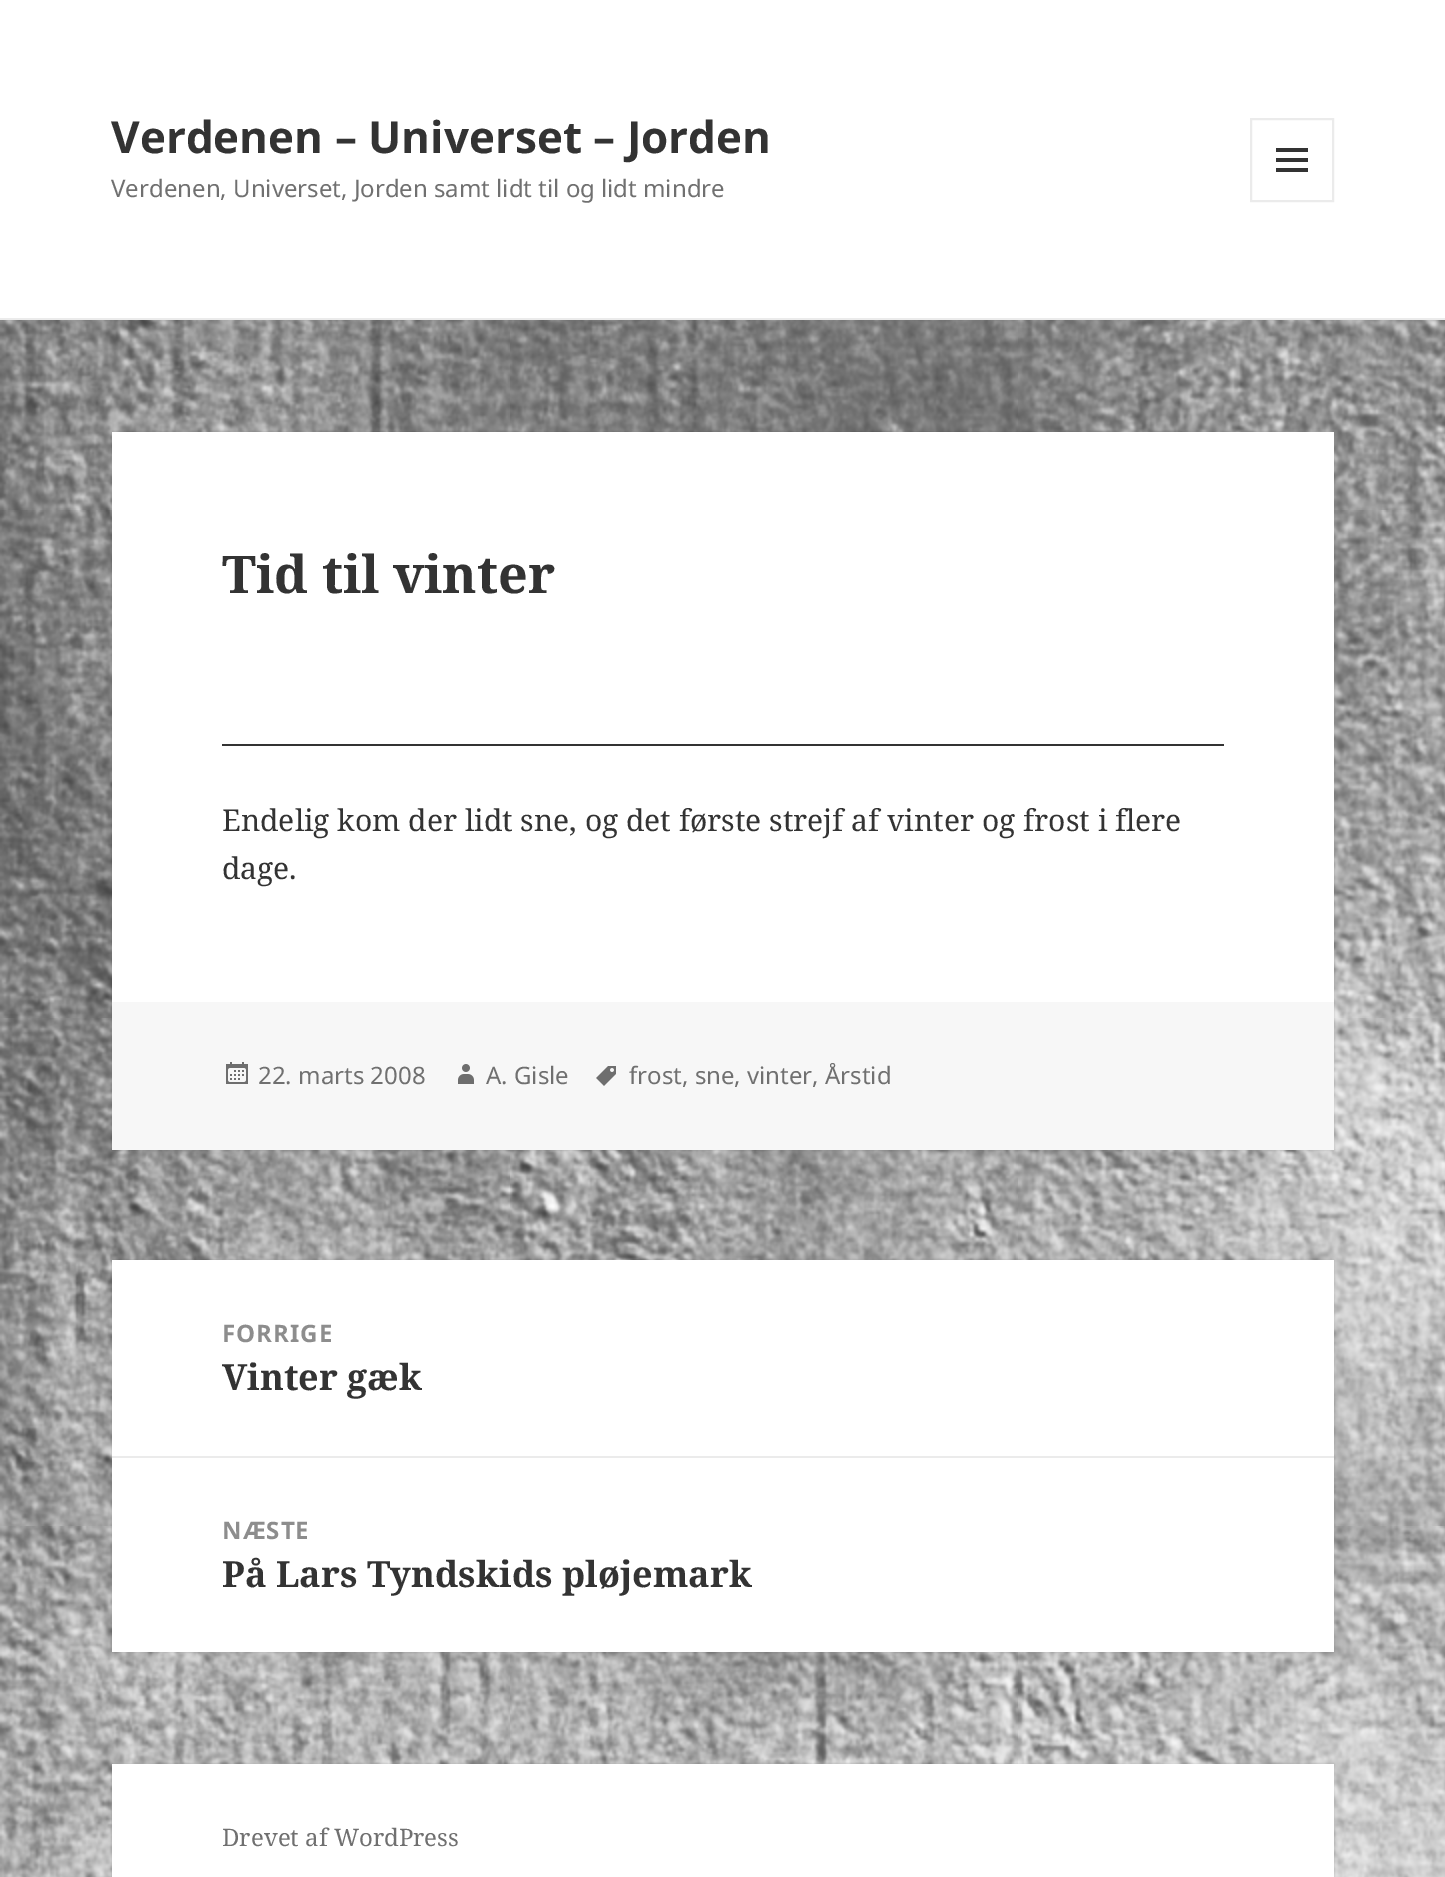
%!PS-Adobe-3.0
%%BoundingBox: 0 0 1445 1877
%%LanguageLevel: 3
%%Pages: 1
%%EndComments
%%BeginProlog
/setink { dup -16 bitshift 255 div exch dup -8 bitshift 255 and 255 div exch 255 and 255 div setrgbcolor } def
/usefont { [ exch dup neg 0 0 3 -1 roll 0 0 ] selectfont } def
/setalpha { dup .setfillconstantalpha .setstrokeconstantalpha } def
/rrect { 5 dict begin { /r /h /w /y /x } { exch def } forall
  x r add y moveto x w add y 2 copy h add r arct x w add y h add x 1 index r arct
  x y h add x y r arct x y 2 copy exch w add exch r arct closepath end } def
/softshadow { 12 dict begin { /a /b /q /h /w /y /x } { exch def } forall gsave /was 0 def
  9 -2 -9 { dup b mul 4 div /e exch def 1 sub .425 mul 2.718 exch exp 1 add a .99 .min exch div /now exch def
    1 1 now sub 1 was sub div sub setalpha /was now def
    w h .min e 2 mul add 0 gt { x e sub y e sub w e 2 mul add h e 2 mul add
      q e add b .6 mul add w h .min 2 div e add .min 0 .max rrect fill } if } for grestore end } def
/drawimage { 5 dict begin { /h /w /y /x /name } { exch def } forall
  gsave x y translate w h scale
  w h 8 [w 0 0 h 0 0] name (r) file false 3 colorimage grestore end } def
%%EndProlog
%%BeginSetup
<< /PageSize [1445 1877] /PageUsesTransparency true >> setpagedevice
%%EndSetup
%%Page: 1 1
0 .pushpdf14devicefilter
0 1877 translate 1 -1 scale
4 setmiterlimit
16#FFFFFF setink
0 0 1445 1877 rectfill
(img1.raw) 0 320 1445 1557 drawimage
16#EBEBEB setink
0 318 1445 2 rectfill
/NotoSans-Bold 44 usefont
16#333333 setink
111 153 moveto (Verdenen – Universet – Jorden) show
16#EBEBEB setink
2 setlinewidth
1251 119 82 82 rectstroke
(img2.raw) 1276 148 32 24 drawimage
/NotoSans-Regular 24 usefont
16#707070 setink
111 197 moveto (Verdenen, Universet, Jorden samt lidt til og lidt mindre) show
16#000000 setink
112 432 1222 718 0 1 0.15 softshadow
16#FFFFFF setink
112 432 1222 570 rectfill
/NotoSerif-Bold 52 usefont
16#333333 setink
222 593 moveto (Tid til vinter) show
222 744 1002 2 rectfill
/NotoSerif-Regular 30 usefont
222 831 moveto (Endelig kom der lidt sne, og det første strejf af vinter og frost i flere) show
222 879 moveto (dage.) show
16#F7F7F7 setink
112 1002 1222 148 rectfill
(img3.raw) 226 1062 22 22 drawimage
/NotoSans-Regular 24 usefont
16#707070 setink
258 1084 moveto (22. marts 2008) show
(img4.raw) 458 1064 16 20 drawimage
486 1084 moveto (A. Gisle) show
(img5.raw) 596 1066 20 20 drawimage
629 1084 moveto (frost, sne, vinter, Årstid) show
16#000000 setink
112 1260 1222 392 0 1 0.15 softshadow
16#FFFFFF setink
112 1260 1222 392 rectfill
/NotoSans-Bold 24 usefont
16#8D8D8D setink
222 1342 moveto 1 0 (FORRIGE) ashow
/NotoSerif-Bold 36 usefont
16#333333 setink
222 1390 moveto (Vinter gæk) show
16#EBEBEB setink
112 1456 1222 2 rectfill
/NotoSans-Bold 24 usefont
16#8D8D8D setink
222 1539 moveto 1 0 (NÆSTE) ashow
/NotoSerif-Bold 36 usefont
16#333333 setink
222 1587 moveto (På Lars Tyndskids pløjemark) show
16#000000 setink
112 1764 1222 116 0 1 0.15 softshadow
16#FFFFFF setink
112 1764 1222 113 rectfill
/NotoSerif-Regular 24 usefont
16#707070 setink
222 1846 moveto (Drevet af WordPress) show
.poppdf14devicefilter showpage
%%EOF
